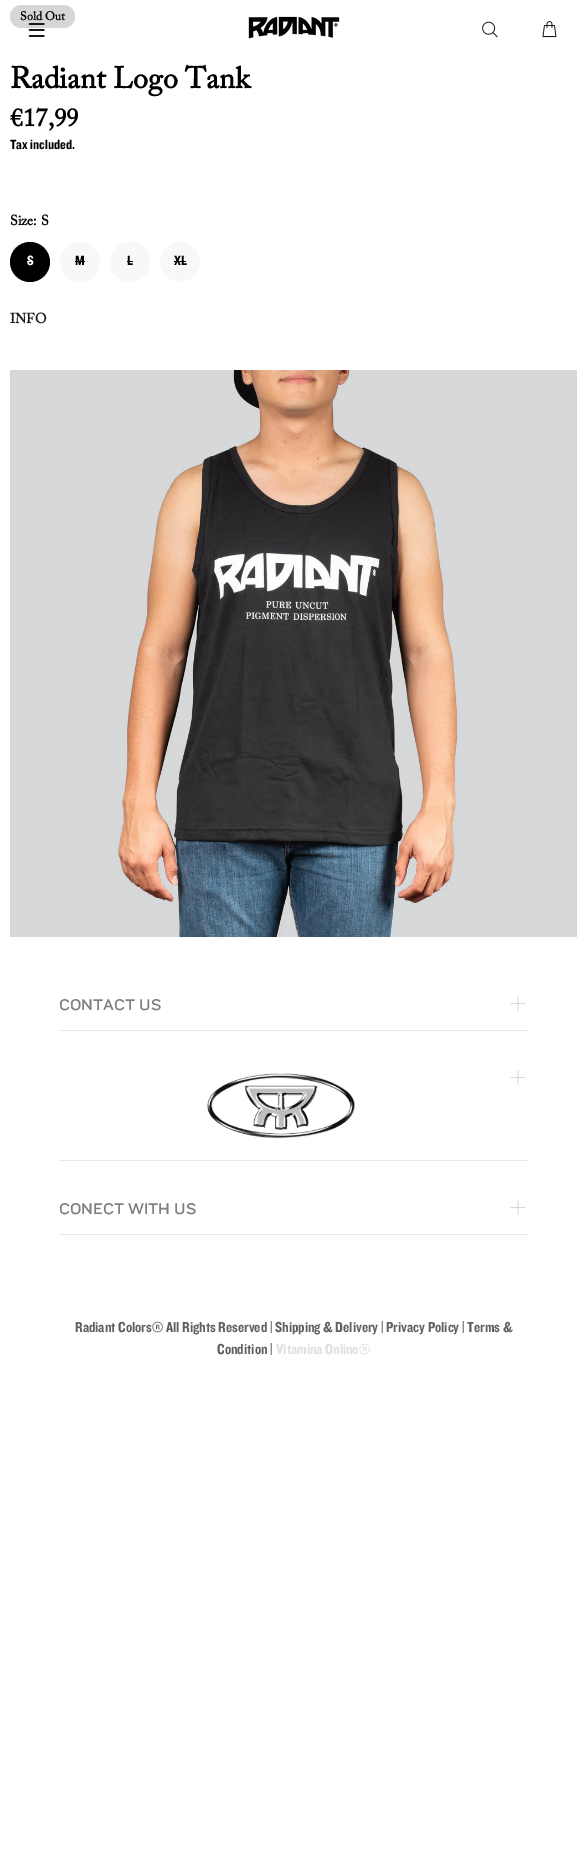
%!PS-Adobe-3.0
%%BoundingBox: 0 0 587 1866
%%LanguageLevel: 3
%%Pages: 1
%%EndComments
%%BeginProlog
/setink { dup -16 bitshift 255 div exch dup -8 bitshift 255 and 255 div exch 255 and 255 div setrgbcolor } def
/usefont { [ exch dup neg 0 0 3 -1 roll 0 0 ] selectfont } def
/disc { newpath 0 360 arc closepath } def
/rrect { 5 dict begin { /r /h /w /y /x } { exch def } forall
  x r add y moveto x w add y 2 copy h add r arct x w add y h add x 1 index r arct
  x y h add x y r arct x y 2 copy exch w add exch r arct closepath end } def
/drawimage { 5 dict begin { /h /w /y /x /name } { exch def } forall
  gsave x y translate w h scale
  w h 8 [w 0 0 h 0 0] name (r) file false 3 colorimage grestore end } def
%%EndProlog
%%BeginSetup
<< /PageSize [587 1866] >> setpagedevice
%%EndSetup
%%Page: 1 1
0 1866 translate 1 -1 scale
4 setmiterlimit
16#FFFFFF setink
0 0 587 1866 rectfill
16#D6D6D6 setink
10 5 65 23 11.5 rrect fill
/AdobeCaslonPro-Bold 12 usefont
16#000000 setink
20 20 moveto (Sold Out) show
/AdobeCaslonPro-Bold 30 usefont
10 88 moveto (Radiant Logo Tank) show
/AdobeCaslonPro-Bold 25 usefont
10 126 moveto (€17,99) show
/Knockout-Medium 14 usefont
10 149 moveto (Tax included.) show
/AdobeCaslonPro-Bold 14 usefont
10 225 moveto (Size: S) show
30 262 20 disc fill
/Knockout-Medium 14 usefont
16#FFFFFF setink
27 265 moveto (S) show
27 261 6 1 rectfill
16#F7F8FA setink
80 262 20 disc fill
16#000000 setink
75 265 moveto (M) show
75 261 10 1 rectfill
16#F7F8FA setink
130 262 20 disc fill
16#000000 setink
127 265 moveto (L) show
127 261 6 1 rectfill
16#F7F8FA setink
180 262 20 disc fill
16#000000 setink
174 265 moveto (XL) show
174 261 12 1 rectfill
/AdobeCaslonPro-Bold 14 usefont
16#191919 setink
10 323 moveto (INFO) show
(img1.raw) 10 370 567 567 drawimage
(img2.raw) 28 23 17 14 drawimage
(img3.raw) 248 16 92 23 drawimage
(img4.raw) 482 21 16 17 drawimage
(img5.raw) 542 21 15 17 drawimage
16#E9E7E7 setink
59 1030 469 1 rectfill
/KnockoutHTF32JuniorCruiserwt-Medium 16 usefont
16#7F7F7F setink
59 1010 moveto (CONTACT US) show
(img6.raw) 510 996 16 15 drawimage
16#E9E7E7 setink
59 1160 469 1 rectfill
(img7.raw) 207 1073 148 66 drawimage
(img6.raw) 510 1070 16 15 drawimage
59 1234 469 1 rectfill
16#7F7F7F setink
59 1214 moveto (CONECT WITH US) show
(img6.raw) 510 1200 16 15 drawimage
/Knockout-Medium 15 usefont
16#606060 setink
75 1332 moveto (Radiant Colors® All Rights Reserved | Shipping & Delivery | Privacy Policy | Terms &) show
217 1354 moveto (Condition |) show
16#DFDFDF setink
276 1354 moveto (Vitamina Online®) show
showpage
%%EOF
